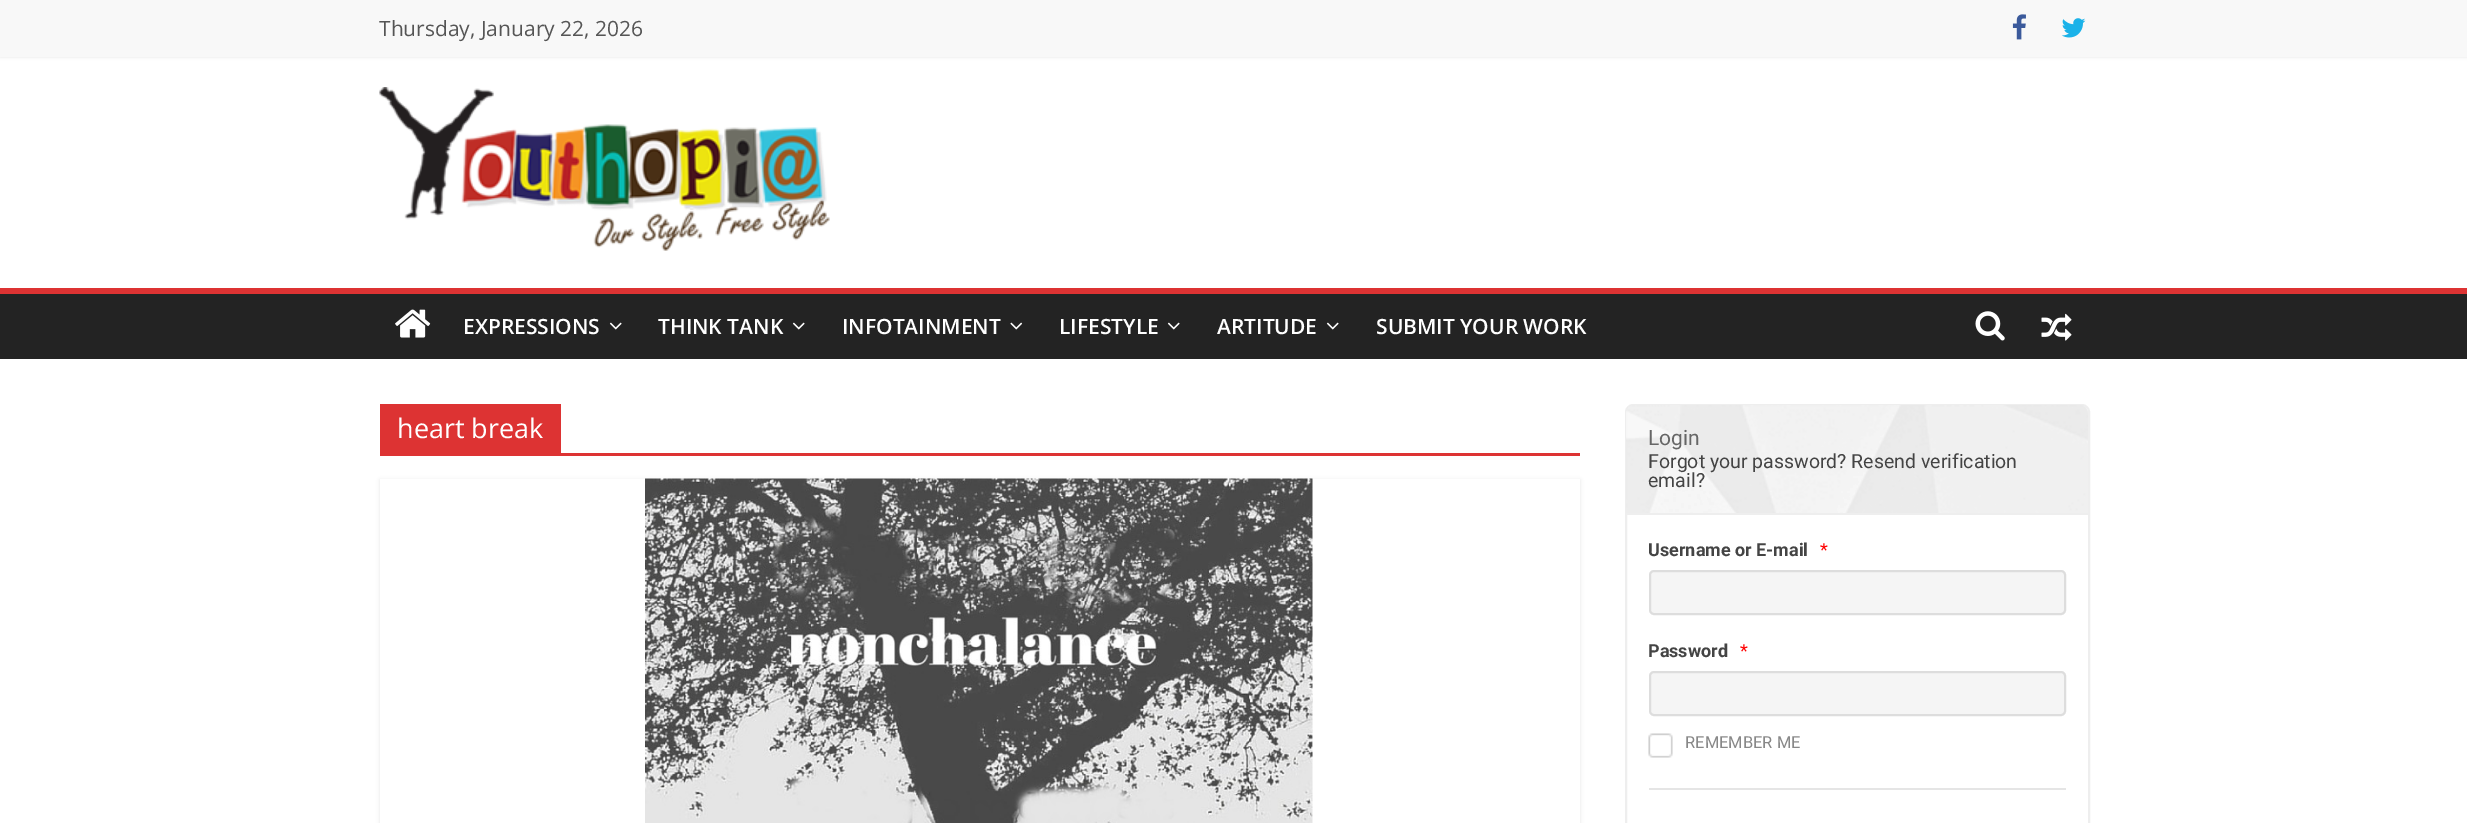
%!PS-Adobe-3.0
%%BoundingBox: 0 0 2467 823
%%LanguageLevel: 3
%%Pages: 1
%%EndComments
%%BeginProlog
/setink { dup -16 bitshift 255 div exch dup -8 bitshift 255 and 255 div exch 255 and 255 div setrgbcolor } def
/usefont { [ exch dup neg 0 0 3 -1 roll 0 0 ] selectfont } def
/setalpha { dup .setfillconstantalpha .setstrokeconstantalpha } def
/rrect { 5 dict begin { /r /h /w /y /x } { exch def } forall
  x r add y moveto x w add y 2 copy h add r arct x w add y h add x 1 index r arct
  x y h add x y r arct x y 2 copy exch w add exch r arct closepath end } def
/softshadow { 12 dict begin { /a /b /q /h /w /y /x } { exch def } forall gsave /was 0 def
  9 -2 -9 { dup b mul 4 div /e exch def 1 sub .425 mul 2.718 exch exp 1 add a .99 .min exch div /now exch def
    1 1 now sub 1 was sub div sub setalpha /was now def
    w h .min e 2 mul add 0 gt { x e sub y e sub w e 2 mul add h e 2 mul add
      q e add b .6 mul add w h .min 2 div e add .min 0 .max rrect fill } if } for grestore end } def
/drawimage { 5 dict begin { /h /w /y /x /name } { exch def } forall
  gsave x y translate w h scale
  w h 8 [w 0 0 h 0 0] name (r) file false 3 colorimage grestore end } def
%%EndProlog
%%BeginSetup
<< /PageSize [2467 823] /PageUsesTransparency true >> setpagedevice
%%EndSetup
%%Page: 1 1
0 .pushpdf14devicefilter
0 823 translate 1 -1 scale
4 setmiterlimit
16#FFFFFF setink
0 0 2467 823 rectfill
16#000000 setink
0 0 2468 57 0 1.5 0.1 softshadow
16#F8F8F8 setink
0 0 2467 57 rectfill
/OpenSans-Regular 21 usefont
16#555555 setink
379 36 moveto (Thursday, January 22, 2026) show
(img1.raw) 2012 14 14 26 drawimage
(img2.raw) 2061 18 25 20 drawimage
(img3.raw) 379 87 451 164 drawimage
16#232323 setink
0 294 2467 65 rectfill
16#DD3333 setink
0 288 2467 6 rectfill
(img4.raw) 395 309 36 29 drawimage
/OpenSans-SemiBold 21 usefont
16#FFFFFF setink
463 334 moveto (EXPRESSIONS) show
(img5.raw) 609 322 13 8 drawimage
658 334 moveto (THINK TANK) show
(img5.raw) 792 322 13 8 drawimage
842 334 moveto (INFOTAINMENT) show
(img6.raw) 1010 322 13 8 drawimage
1059 334 moveto (LIFESTYLE) show
(img5.raw) 1167 322 13 8 drawimage
1217 334 moveto (ARTITUDE) show
(img5.raw) 1326 322 13 8 drawimage
1376 334 moveto (SUBMIT YOUR WORK) show
(img7.raw) 1975 311 30 30 drawimage
(img8.raw) 2041 313 31 28 drawimage
16#DD3333 setink
380 453 1200 3 rectfill
380 404 181 49 rectfill
/OpenSans-Regular 27 usefont
16#FFFFFF setink
397 438 moveto (heart break) show
gsave
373 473 moveto 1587 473 lineto 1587 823 lineto 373 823 lineto closepath 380 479 moveto 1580 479 lineto 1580 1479 lineto 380 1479 lineto closepath eoclip newpath
16#000000 setink
380 480 1200 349 0 2 0.1 softshadow
grestore
(img9.raw) 645 478 668 345 drawimage
16#EEEEEE setink
2 setlinewidth
1626 405 463 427 7 rrect stroke
16#F5F5F5 setink
1634 405 moveto 2080 405 lineto 2084.5 405 2088 408.5 2088 413 curveto 2088 515 lineto 1626 515 lineto 1626 413 lineto 1626 408.5 1629.5 405 1634 405 curveto closepath fill
(img10.raw) 1626 405 462 108 drawimage
16#EEEEEE setink
1626 513 462 2 rectfill
/Roboto-Regular 21 usefont
16#666666 setink
1648 445 moveto (Login) show
/Roboto-Regular 19.5 usefont
16#444444 setink
1648 468 moveto (Forgot your password? Resend verification) show
1648 487 moveto (email?) show
/Roboto-Bold 18 usefont
1648 556 moveto (Username or E-mail) show
/Roboto-Regular 18 usefont
16#FF0000 setink
1820 556 moveto (*) show
16#F5F5F5 setink
1650 571 415 43 4 rrect gsave fill grestore
16#DDDDDD setink
stroke
/Roboto-Bold 18 usefont
16#444444 setink
1648 657 moveto (Password) show
/Roboto-Regular 18 usefont
16#FF0000 setink
1740 657 moveto (*) show
16#F5F5F5 setink
1650 672 415 43 4 rrect gsave fill grestore
16#DDDDDD setink
stroke
(img11.raw) 1648 733 25 25 drawimage
/Roboto-Regular 16.5 usefont
16#888888 setink
1685 748 moveto (REMEMBER ME) show
16#E5E5E5 setink
1649 788 417 2 rectfill
.poppdf14devicefilter showpage
%%EOF
